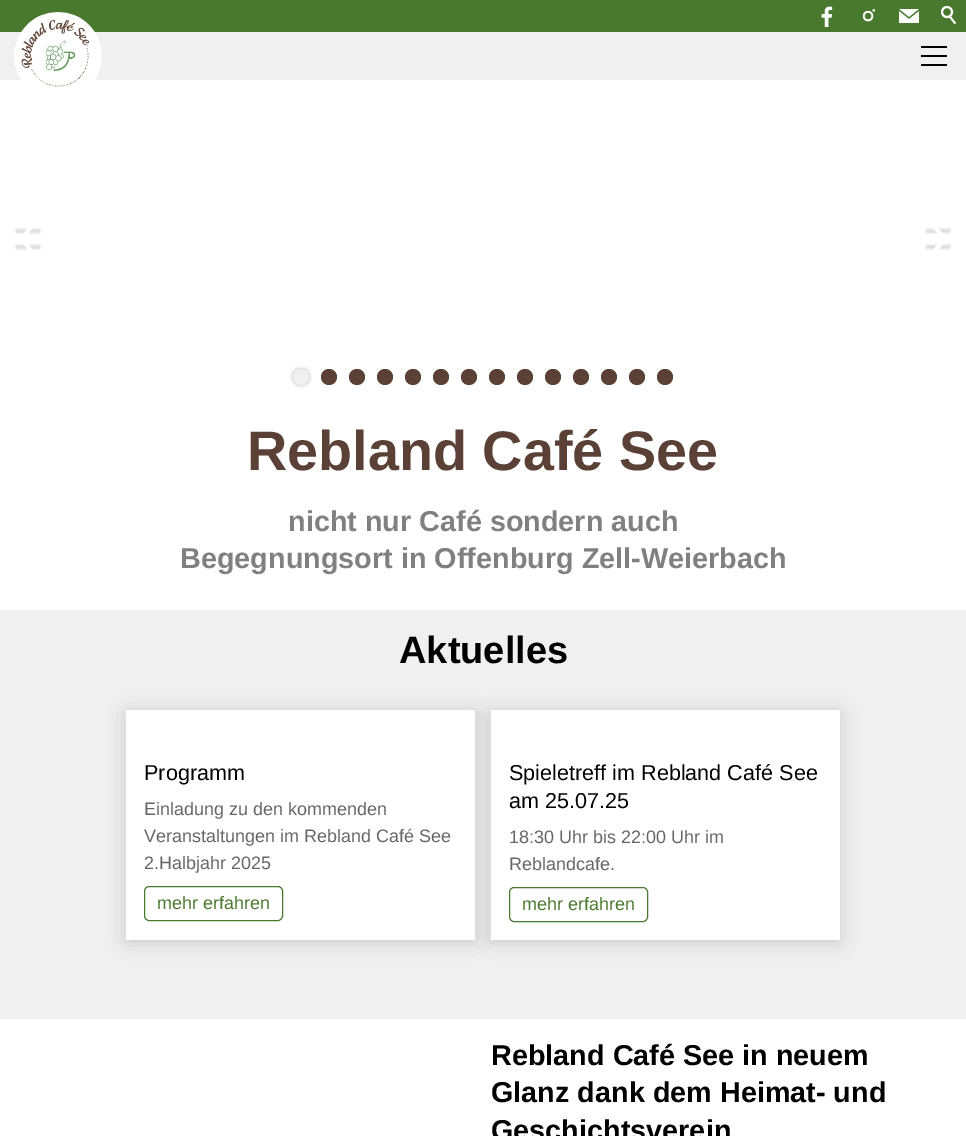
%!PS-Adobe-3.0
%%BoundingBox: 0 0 966 1136
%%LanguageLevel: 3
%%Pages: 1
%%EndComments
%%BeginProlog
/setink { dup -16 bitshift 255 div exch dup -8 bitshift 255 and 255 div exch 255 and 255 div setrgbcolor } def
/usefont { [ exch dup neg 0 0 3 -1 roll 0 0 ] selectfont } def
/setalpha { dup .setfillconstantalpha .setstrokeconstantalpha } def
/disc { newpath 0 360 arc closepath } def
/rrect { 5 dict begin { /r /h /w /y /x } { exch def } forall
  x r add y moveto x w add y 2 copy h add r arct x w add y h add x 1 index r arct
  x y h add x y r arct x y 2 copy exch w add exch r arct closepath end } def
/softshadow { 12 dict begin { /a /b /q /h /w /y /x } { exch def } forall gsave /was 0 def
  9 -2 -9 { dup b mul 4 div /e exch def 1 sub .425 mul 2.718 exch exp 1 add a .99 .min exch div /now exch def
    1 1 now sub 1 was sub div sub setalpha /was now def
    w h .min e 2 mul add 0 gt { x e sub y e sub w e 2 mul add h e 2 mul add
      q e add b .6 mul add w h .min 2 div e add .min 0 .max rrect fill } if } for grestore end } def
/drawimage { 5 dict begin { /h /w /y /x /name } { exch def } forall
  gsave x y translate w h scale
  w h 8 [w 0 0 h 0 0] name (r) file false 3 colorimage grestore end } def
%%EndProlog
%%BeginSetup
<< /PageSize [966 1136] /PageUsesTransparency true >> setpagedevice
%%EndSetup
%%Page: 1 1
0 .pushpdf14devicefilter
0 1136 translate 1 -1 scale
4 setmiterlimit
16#FFFFFF setink
0 0 966 1136 rectfill
16#F0F0F0 setink
0 32 966 48 rectfill
16#49792F setink
0 0 966 32 rectfill
(img1.raw) 821 6 12 21 drawimage
(img2.raw) 862 9 13 13 drawimage
(img3.raw) 899 9 20 14 drawimage
16#FFFFFF setink
2 setlinewidth
947 12 5 disc stroke
950.5 16 moveto 956 23 lineto 954.5 24 lineto 949 17 lineto closepath fill
(img4.raw) 14 12 88 75 drawimage
[
    [921 46 26 2 16#000000]
    [921 55 26 2 16#000000]
    [921 64 26 2 16#000000]
] { aload pop setink rectfill } forall
16#DDDDDD setink
16 229 24 4 0 1 1 softshadow
16 245 24 4 0 1 1 softshadow
16#FFFFFF setink
22 236.5 moveto 37 255 lineto 34 257.5 lineto 19 239 lineto closepath fill
19 239 moveto 34 220.5 lineto 37 223 lineto 22 241.5 lineto closepath fill
16#DDDDDD setink
926 229 24 4 0 1 1 softshadow
926 245 24 4 0 1 1 softshadow
16#FFFFFF setink
929 255 moveto 944 236.5 lineto 947 239 lineto 932 257.5 lineto closepath fill
932 220.5 moveto 947 239 lineto 944 241.5 lineto 929 223 lineto closepath fill
16#000000 setink
293 369 16 16 8 2 0.3 softshadow
16#F0F0F0 setink
301 377 8 disc fill
16#5A4035 setink
329 377 8 disc fill
357 377 8 disc fill
385 377 8 disc fill
413 377 8 disc fill
441 377 8 disc fill
469 377 8 disc fill
497 377 8 disc fill
525 377 8 disc fill
553 377 8 disc fill
581 377 8 disc fill
609 377 8 disc fill
637 377 8 disc fill
665 377 8 disc fill
/LiberationSans-Bold 55.75 usefont
247 470 moveto (Rebland Café See) show
/LiberationSans-Bold 28.8 usefont
16#808080 setink
288 531 moveto (nicht nur Café sondern auch) show
180 568 moveto (Begegnungsort in Offenburg Zell-Weierbach) show
16#F0F0F0 setink
0 610 966 409 rectfill
/LiberationSans-Bold 38 usefont
16#000000 setink
399 663 moveto (Aktuelles) show
128 714 345 226 0 10 0.2 softshadow
16#FFFFFF setink
126 710 349 230 rectfill
/LiberationSans-Regular 21.6 usefont
16#000000 setink
144 780 moveto (Programm) show
/LiberationSans-Regular 18 usefont
16#666666 setink
[
    [(Einladung zu den kommenden) 144 815]
    [(Veranstaltungen im Rebland Café See) 144 842]
    [(2.Halbjahr 2025) 144 869]
] { aload pop moveto show } forall
16#49792F setink
1 setlinewidth
144.5 886.5 138 34 4.5 rrect stroke
157 909 moveto (mehr erfahren) show
16#000000 setink
493 714 345 226 0 10 0.2 softshadow
16#FFFFFF setink
491 710 349 230 rectfill
/LiberationSans-Regular 21.6 usefont
16#000000 setink
509 780 moveto (Spieletreff im Rebland Café See) show
509 808 moveto (am 25.07.25) show
/LiberationSans-Regular 18 usefont
16#666666 setink
509 843 moveto (18:30 Uhr bis 22:00 Uhr im) show
509 870 moveto (Reblandcafe.) show
16#49792F setink
509.5 887.5 138 34 4.5 rrect stroke
522 910 moveto (mehr erfahren) show
/LiberationSans-Bold 28.8 usefont
16#000000 setink
[
    [(Rebland Café See in neuem) 491 1065]
    [(Glanz dank dem Heimat- und) 491 1102]
    [(Geschichtsverein) 491 1140]
] { aload pop moveto show } forall
.poppdf14devicefilter showpage
%%EOF
